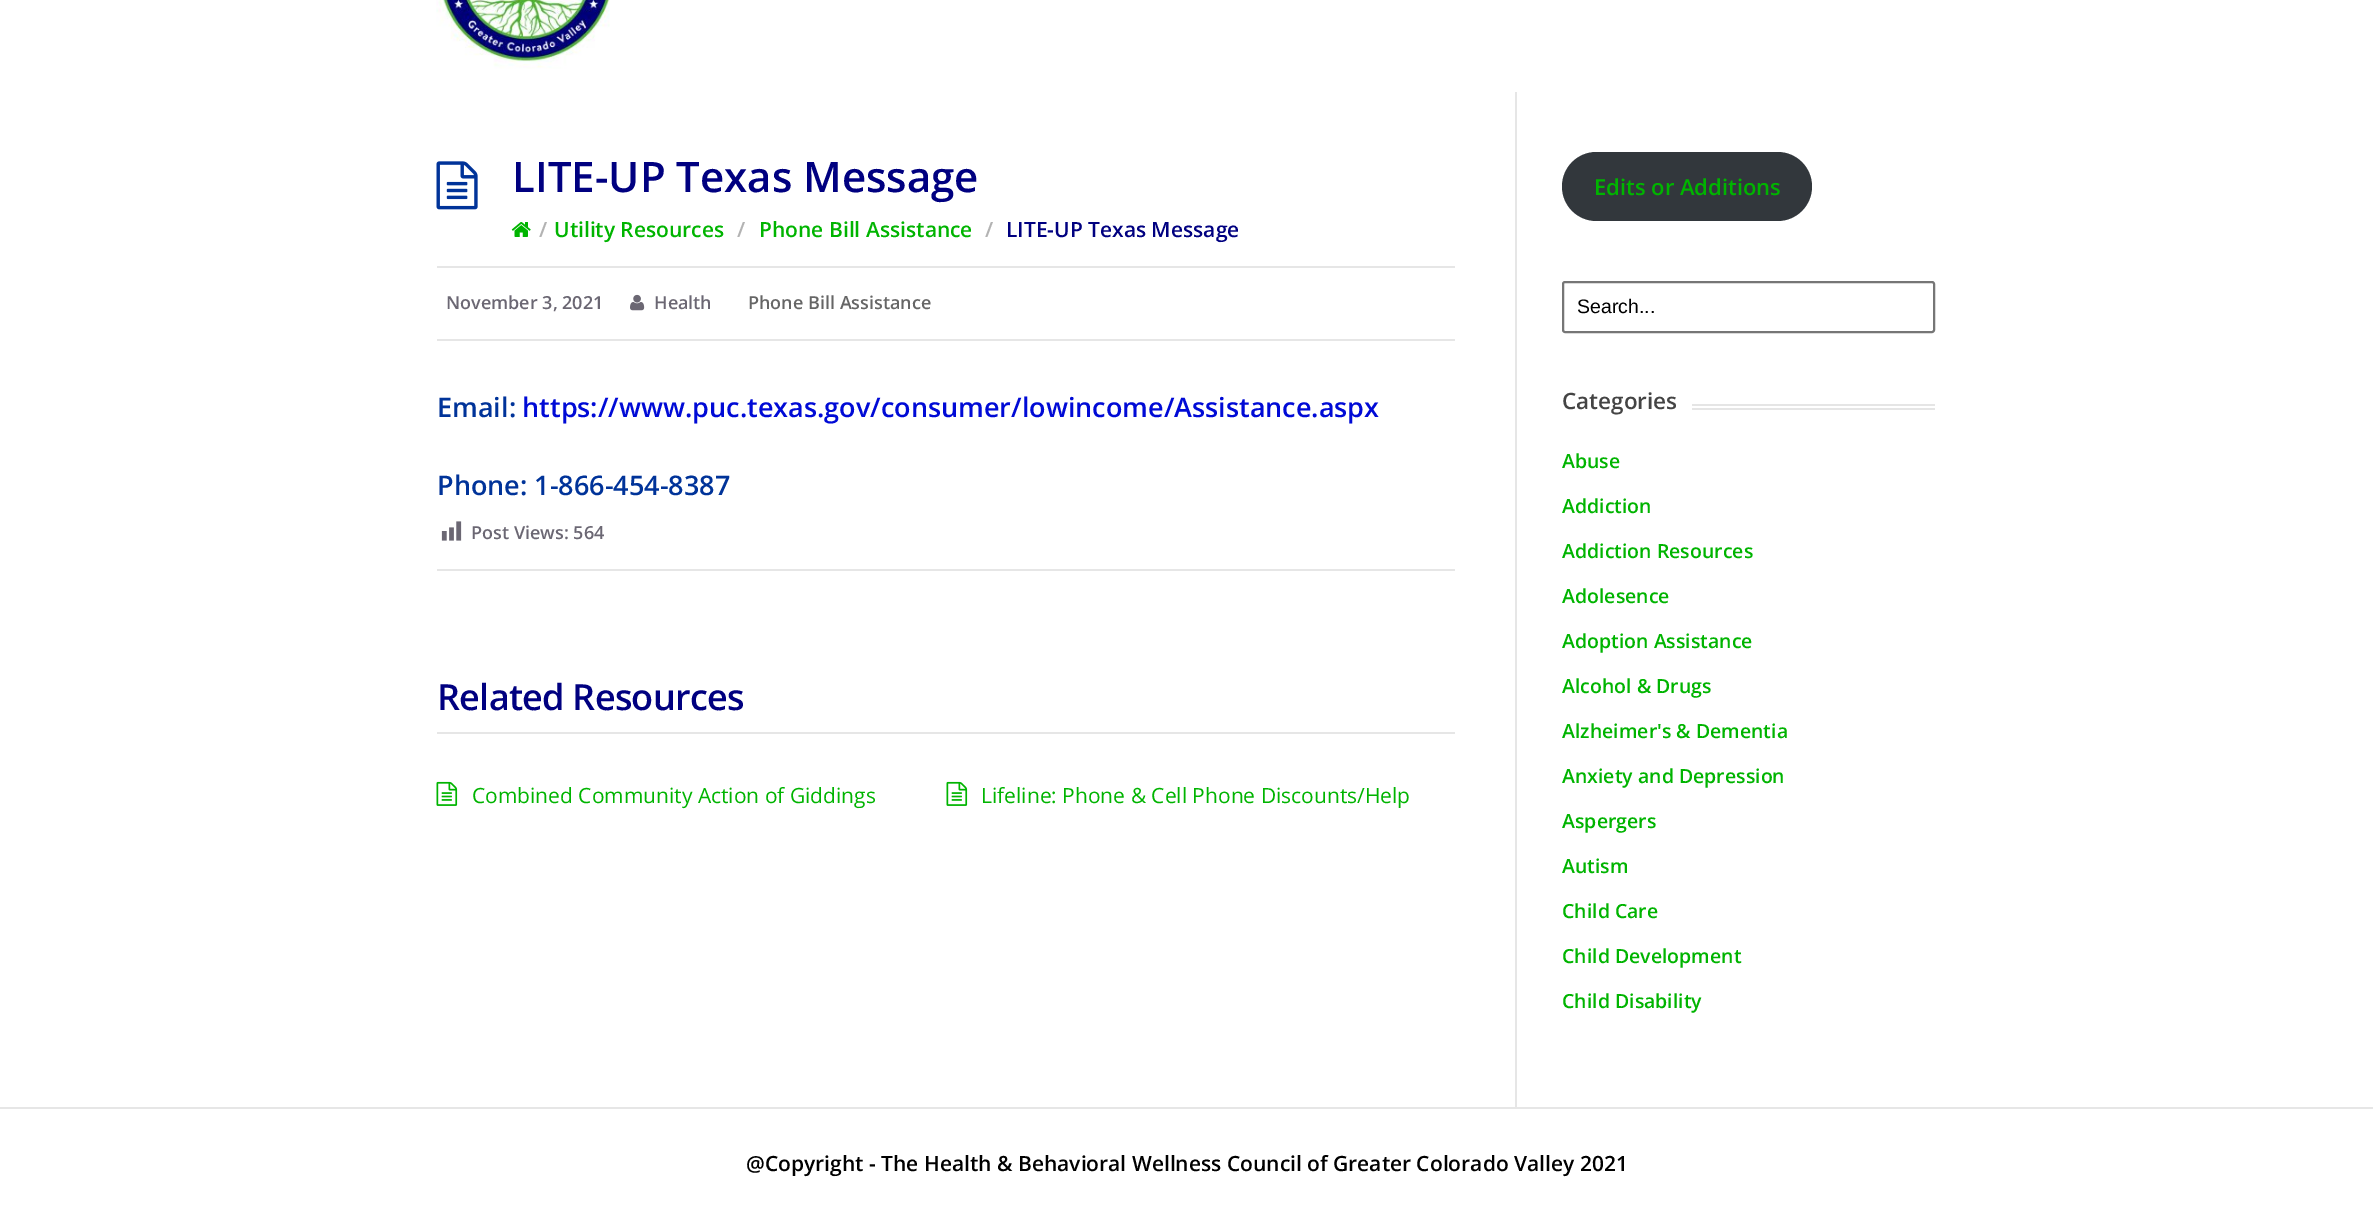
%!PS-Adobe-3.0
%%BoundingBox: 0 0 2373 1210
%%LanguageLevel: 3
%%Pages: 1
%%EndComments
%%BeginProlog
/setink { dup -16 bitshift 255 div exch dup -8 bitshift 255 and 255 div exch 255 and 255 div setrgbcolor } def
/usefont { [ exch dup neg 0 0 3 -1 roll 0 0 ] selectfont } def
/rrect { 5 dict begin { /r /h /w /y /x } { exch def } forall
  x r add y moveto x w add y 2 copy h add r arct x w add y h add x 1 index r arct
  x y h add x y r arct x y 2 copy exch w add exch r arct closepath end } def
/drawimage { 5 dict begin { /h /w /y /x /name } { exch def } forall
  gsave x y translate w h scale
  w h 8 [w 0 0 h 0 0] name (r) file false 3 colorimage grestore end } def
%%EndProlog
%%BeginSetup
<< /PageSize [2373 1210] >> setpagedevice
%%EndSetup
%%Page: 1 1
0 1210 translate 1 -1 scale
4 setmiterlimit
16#FFFFFF setink
0 0 2373 1210 rectfill
(img1.raw) 436 0 174 69 drawimage
16#E6E6E6 setink
437 266 1018 2 rectfill
(img2.raw) 436 161 42 49 drawimage
/OpenSans-SemiBold 42 usefont
16#000080 setink
512 192 moveto (LITE-UP Texas Message) show
(img3.raw) 511 222 20 15 drawimage
/OpenSans-SemiBold 21 usefont
16#B3B3B3 setink
539 237 moveto (/) show
16#00B400 setink
554 237 moveto (Utility Resources) show
16#B3B3B3 setink
737 237 moveto (/) show
16#00B400 setink
759 237 moveto (Phone Bill Assistance) show
16#B3B3B3 setink
985 237 moveto (/) show
16#000080 setink
1006 237 moveto (LITE-UP Texas Message) show
16#E6E6E6 setink
437 339 1018 2 rectfill
/OpenSans-SemiBold 18 usefont
16#6B6773 setink
446 309 moveto (November 3, 2021) show
(img4.raw) 630 294 15 17 drawimage
654 309 moveto (Health) show
16#666666 setink
748 309 moveto (Phone Bill Assistance) show
/OpenSans-SemiBold 27 usefont
16#003399 setink
437 417 moveto (Email:) show
16#000AD6 setink
522 417 moveto (https://www.puc.texas.gov/consumer/lowincome/Assistance.aspx) show
16#003399 setink
437 495 moveto (Phone: 1-866-454-8387) show
16#E6E6E6 setink
437 569 1018 2 rectfill
(img5.raw) 441 521 21 20 drawimage
/OpenSans-SemiBold 18 usefont
16#6B6773 setink
471 539 moveto (Post Views: 564) show
16#E6E6E6 setink
437 732 1018 2 rectfill
/OpenSans-SemiBold 36 usefont
16#000080 setink
437 710 moveto -0.75 0 (Related Resources) ashow
(img6.raw) 436 781 22 25 drawimage
/OpenSans-Regular 21 usefont
16#00B400 setink
472 803 moveto (Combined Community Action of Giddings) show
(img6.raw) 946 781 22 25 drawimage
981 803 moveto (Lifeline: Phone & Cell Phone Discounts/Help) show
16#E6E6E6 setink
1515 92 2 1015 rectfill
16#32373C setink
1562 152 250 69 34.5 rrect fill
/OpenSans-SemiBold 22 usefont
16#00B400 setink
1594 195 moveto (Edits or Additions) show
16#767676 setink
2 setlinewidth
1563 282 371 50 2 rrect stroke
/LiberationSans-Regular 19.5 usefont
16#000000 setink
1577 313 moveto (Search...) show
16#E5E5E5 setink
1692 404 243 2 rectfill
1692 408 243 2 rectfill
/OpenSans-SemiBold 22.5 usefont
16#444444 setink
1562 409 moveto (Categories) show
/OpenSans-SemiBold 19.5 usefont
16#00B400 setink
[
    [(Abuse) 1562 468]
    [(Addiction) 1562 513]
    [(Addiction Resources) 1562 558]
    [(Adolesence) 1562 603]
    [(Adoption Assistance) 1562 648]
    [(Alcohol & Drugs) 1562 693]
    [(Alzheimer's & Dementia) 1562 738]
    [(Anxiety and Depression) 1562 783]
    [(Aspergers) 1562 828]
    [(Autism) 1562 873]
    [(Child Care) 1562 918]
    [(Child Development) 1562 963]
    [(Child Disability) 1562 1008]
] { aload pop moveto show } forall
16#E6E6E6 setink
0 1107 2373 2 rectfill
/OpenSans-SemiBold 21 usefont
16#000000 setink
746 1171 moveto (@Copyright - The Health & Behavioral Wellness Council of Greater Colorado Valley 2021) show
showpage
%%EOF
